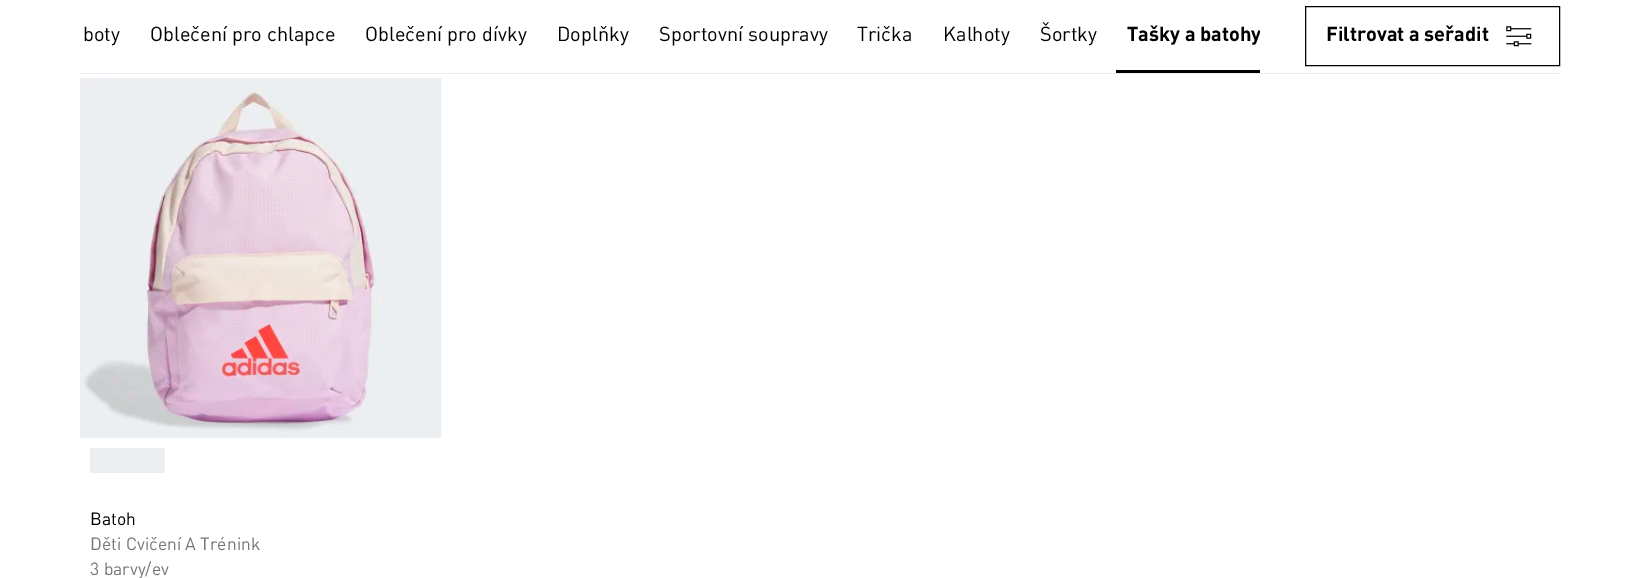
%!PS-Adobe-3.0
%%BoundingBox: 0 0 1639 578
%%LanguageLevel: 3
%%Pages: 1
%%EndComments
%%BeginProlog
/setink { dup -16 bitshift 255 div exch dup -8 bitshift 255 and 255 div exch 255 and 255 div setrgbcolor } def
/usefont { [ exch dup neg 0 0 3 -1 roll 0 0 ] selectfont } def
/drawimage { 5 dict begin { /h /w /y /x /name } { exch def } forall
  gsave x y translate w h scale
  w h 8 [w 0 0 h 0 0] name (r) file false 3 colorimage grestore end } def
%%EndProlog
%%BeginSetup
<< /PageSize [1639 578] >> setpagedevice
%%EndSetup
%%Page: 1 1
0 578 translate 1 -1 scale
4 setmiterlimit
16#FFFFFF setink
0 0 1639 578 rectfill
16#ECEFF1 setink
80 73 1480 1 rectfill
/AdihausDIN-Regular 20 usefont
16#000000 setink
[
    [(boty) 83 41]
    [(Oblečení pro chlapce) 150 41]
    [(Oblečení pro dívky) 365 41]
    [(Doplňky) 557 41]
    [(Sportovní soupravy) 659 41]
    [(Trička) 857 41]
    [(Kalhoty) 943 41]
    [(Šortky) 1040 41]
] { aload pop moveto show } forall
1116 70 144 3 rectfill
gsave
80 0 1180 73 rectclip
/AdihausDIN-Bold 20 usefont
1127 41 moveto (Tašky a batohy) show
grestore
1305.5 6.5 254 59 rectstroke
/AdihausDIN-Bold 20 usefont
1326 41 moveto (Filtrovat a seřadit) show
(img1.raw) 1506 26 26 21 drawimage
16#ECEFF1 setink
80 437 361 1 rectfill
(img2.raw) 80 77 362 360 drawimage
90 448 75 25 rectfill
/AdihausDIN-Regular 17.5 usefont
16#000000 setink
90 525 moveto (Batoh) show
16#767677 setink
90 550 moveto (Děti Cvičení A Trénink) show
90 575 moveto (3 barvy/ev) show
showpage
%%EOF
